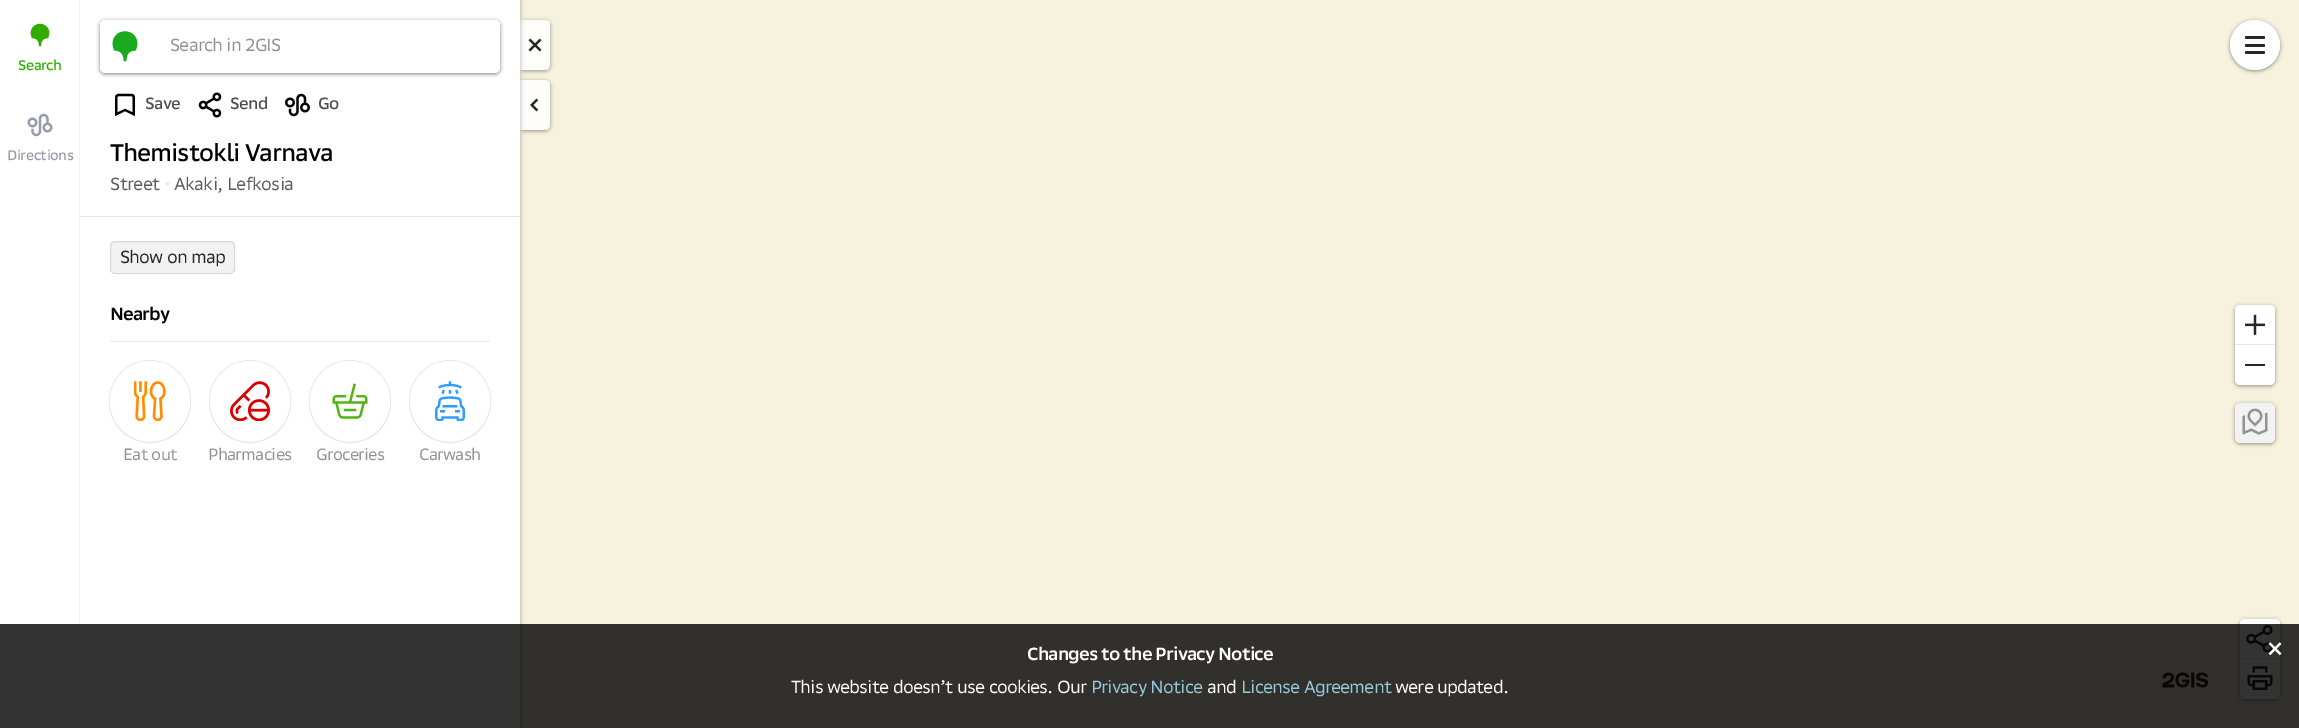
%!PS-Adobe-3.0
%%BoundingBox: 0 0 2299 728
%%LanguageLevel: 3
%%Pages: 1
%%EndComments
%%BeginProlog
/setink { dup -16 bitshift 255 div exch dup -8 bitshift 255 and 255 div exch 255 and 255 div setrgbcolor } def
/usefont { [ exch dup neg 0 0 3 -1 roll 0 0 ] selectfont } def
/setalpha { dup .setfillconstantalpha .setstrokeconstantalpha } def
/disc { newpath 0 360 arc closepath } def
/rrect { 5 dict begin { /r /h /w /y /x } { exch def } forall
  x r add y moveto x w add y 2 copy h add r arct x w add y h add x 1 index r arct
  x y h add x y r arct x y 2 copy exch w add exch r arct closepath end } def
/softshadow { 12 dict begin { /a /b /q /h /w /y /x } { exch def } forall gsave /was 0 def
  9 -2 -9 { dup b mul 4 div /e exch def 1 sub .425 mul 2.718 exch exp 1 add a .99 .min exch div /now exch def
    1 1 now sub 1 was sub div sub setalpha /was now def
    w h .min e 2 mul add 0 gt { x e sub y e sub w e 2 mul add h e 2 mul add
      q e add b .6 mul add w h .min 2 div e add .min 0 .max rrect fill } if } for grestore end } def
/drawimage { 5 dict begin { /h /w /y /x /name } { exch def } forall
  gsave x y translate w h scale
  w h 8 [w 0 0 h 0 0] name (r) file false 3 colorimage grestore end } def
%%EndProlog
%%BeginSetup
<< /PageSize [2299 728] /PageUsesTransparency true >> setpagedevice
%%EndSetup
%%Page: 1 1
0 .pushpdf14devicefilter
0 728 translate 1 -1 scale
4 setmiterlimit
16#F6F2DE setink
0 0 2299 728 rectfill
gsave
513 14 moveto 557 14 lineto 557 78 lineto 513 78 lineto closepath 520 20 moveto 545 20 lineto 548 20 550 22 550 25 curveto 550 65 lineto 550 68 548 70 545 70 curveto 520 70 lineto closepath eoclip newpath
16#262626 setink
520 21 30 50 5 2 0.5 softshadow
grestore
0.85 setalpha
16#FFFFFF setink
520 20 moveto 545 20 lineto 548 20 550 22 550 25 curveto 550 65 lineto 550 68 548 70 545 70 curveto 520 70 lineto closepath fill
gsave
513 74 moveto 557 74 lineto 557 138 lineto 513 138 lineto closepath 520 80 moveto 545 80 lineto 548 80 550 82 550 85 curveto 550 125 lineto 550 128 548 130 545 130 curveto 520 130 lineto closepath eoclip newpath
1 setalpha
16#262626 setink
520 81 30 50 5 2 0.5 softshadow
grestore
520 80 moveto 545 80 lineto 548 80 550 82 550 85 curveto 550 125 lineto 550 128 548 130 545 130 curveto 520 130 lineto closepath fill
1 setalpha
16#262626 setink
1 0 520 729 0 2 0.25 softshadow
16#FFFFFF setink
0 0 520 728 rectfill
(img1.raw) 528 38 14 14 drawimage
(img2.raw) 530 98 9 14 drawimage
16#F2F2F2 setink
79 0 1 728 rectfill
(img3.raw) 30 23 20 24 drawimage
/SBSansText-Medium 13.75 usefont
16#30AD00 setink
18 70 moveto -0.5 0 (Search) ashow
(img4.raw) 27 113 26 24 drawimage
16#989BAB setink
7 160 moveto -0.5 0 (Directions) ashow
16#000000 setink
100 21 400 53 5 2 0.5 softshadow
16#FFFFFF setink
100 20 400 53 5 rrect fill
(img5.raw) 112 31 26 31 drawimage
/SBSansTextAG-Regular 17.5 usefont
16#929292 setink
170 51 moveto -0.9 0 (Search in 2GIS) ashow
(img6.raw) 115 93 20 24 drawimage
/SBSansText-Medium 16.25 usefont
16#4D4D4D setink
145 109 moveto -0.75 0 (Save) ashow
(img7.raw) 198 92 24 26 drawimage
230 109 moveto -0.75 0 (Send) ashow
(img8.raw) 285 93 25 24 drawimage
318 109 moveto -0.75 0 (Go) ashow
/SBSansText-Medium 23.75 usefont
16#000000 setink
110 161 moveto -1.1 0 (Themistokli Varnava) ashow
/SBSansTextAG-Regular 17.5 usefont
16#5C5C5C setink
110 190 moveto -0.75 0 (Street) ashow
16#E6E6E6 setink
164 190 moveto -0.75 0 (•) ashow
16#5C5C5C setink
174 190 moveto -0.75 0 (Akaki, Lefkosia) ashow
16#E6E6E6 setink
80 216 440 1 rectfill
16#F2F2F2 setink
110 241 125 33 5 rrect fill
0.1 setalpha
16#000000 setink
110.5 241.5 124 32 4.5 rrect stroke
1 setalpha
16#262626 setink
120 263 moveto -0.9 0 (Show on map) ashow
/SBSansText-SemiBold 17.5 usefont
16#000000 setink
110 320 moveto -0.9 0 (Nearby) ashow
16#E6E6E6 setink
110 341 380 1 rectfill
109.5 360.5 81 82 40.5 rrect stroke
16#FFFFFF setink
150 401 40 disc fill
(img9.raw) 134 381 32 40 drawimage
/SBSansTextAG-Regular 16.25 usefont
16#929292 setink
123 460 moveto -0.75 0 (Eat out) ashow
16#E6E6E6 setink
209.5 360.5 81 82 40.5 rrect stroke
16#FFFFFF setink
250 401 40 disc fill
(img10.raw) 230 381 40 40 drawimage
16#929292 setink
208 460 moveto -0.75 0 (Pharmacies) ashow
16#E6E6E6 setink
309.5 360.5 81 82 40.5 rrect stroke
16#FFFFFF setink
350 401 40 disc fill
(img11.raw) 332 383 36 36 drawimage
16#929292 setink
316 460 moveto -0.75 0 (Groceries) ashow
16#E6E6E6 setink
409.5 360.5 81 82 40.5 rrect stroke
16#FFFFFF setink
450 401 40 disc fill
(img12.raw) 435 381 30 40 drawimage
16#929292 setink
419 460 moveto -0.75 0 (Carwash) ashow
16#262626 setink
2230 21 50 50 25 2 0.5 softshadow
16#FFFFFF setink
2255 45 25 disc fill
16#262626 setink
2245 36 20 3 1.5 rrect fill
2245 44 20 3 1.5 rrect fill
2245 51 20 3 1.5 rrect fill
(img13.raw) 2162 672 47 16 drawimage
2235 306 40 80 5 2 0.5 softshadow
16#FFFFFF setink
2235 305 40 80 5 rrect fill
16#E6E6E6 setink
2235 344 40 1 rectfill
(img14.raw) 2245 314 20 21 drawimage
16#262626 setink
2245 364 20 2 rectfill
2235 404 40 40 5 2 0.5 softshadow
16#F2F2F2 setink
2235 403 40 40 5 rrect fill
(img15.raw) 2242 408 26 27 drawimage
16#262626 setink
2240 620 40 80 5 2 0.5 softshadow
16#FFFFFF setink
2240 619 40 80 5 rrect fill
16#E6E6E6 setink
2240 658 40 1 rectfill
(img16.raw) 2246 625 27 28 drawimage
(img17.raw) 2247 666 26 24 drawimage
0.8 setalpha
16#000000 setink
0 624 2299 104 rectfill
/SBSansText-SemiBold 17.5 usefont
1 setalpha
16#FFFFFF setink
1027 660 moveto -0.9 0 (Changes to the Privacy Notice) ashow
(img18.raw) 2268 642 14 14 drawimage
/SBSansTextAG-Regular 17.5 usefont
791 693 moveto -0.9 0 (This website doesn’t use cookies. Our) ashow
16#97C9DB setink
1091 693 moveto -0.9 0 (Privacy Notice) ashow
16#FFFFFF setink
1207 693 moveto -0.9 0 (and) ashow
16#97C9DB setink
1241 693 moveto -0.9 0 (License Agreement) ashow
16#FFFFFF setink
1395 693 moveto -0.9 0 (were updated.) ashow
.poppdf14devicefilter showpage
%%EOF
